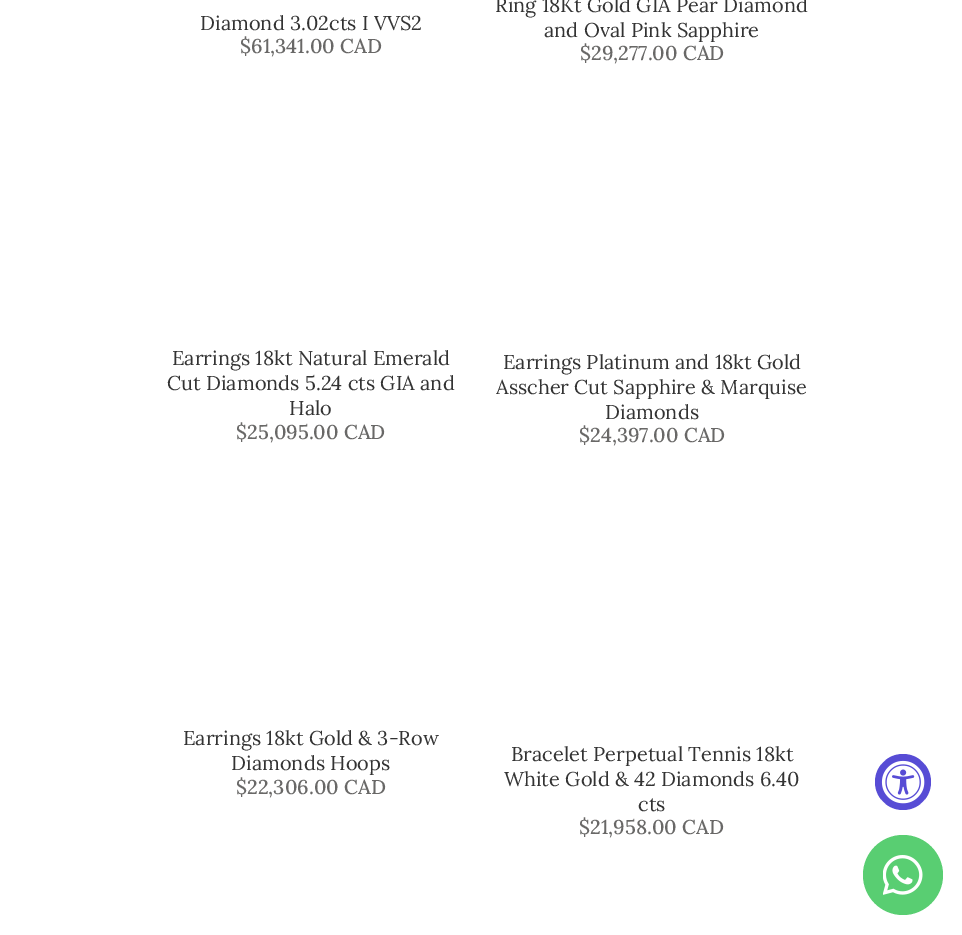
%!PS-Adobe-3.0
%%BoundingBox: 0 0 962 935
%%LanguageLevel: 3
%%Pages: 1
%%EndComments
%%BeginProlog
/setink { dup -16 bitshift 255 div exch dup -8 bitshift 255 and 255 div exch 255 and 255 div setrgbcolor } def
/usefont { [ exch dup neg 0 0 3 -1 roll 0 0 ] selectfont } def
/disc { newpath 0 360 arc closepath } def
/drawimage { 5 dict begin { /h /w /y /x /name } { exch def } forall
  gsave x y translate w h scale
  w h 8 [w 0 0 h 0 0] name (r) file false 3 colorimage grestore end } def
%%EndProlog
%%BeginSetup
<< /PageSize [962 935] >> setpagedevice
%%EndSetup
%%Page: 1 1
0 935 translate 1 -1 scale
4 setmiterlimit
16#FFFFFF setink
0 0 962 935 rectfill
/Lora-Regular 20 usefont
16#333333 setink
200 30 moveto (Diamond 3.02cts I VVS2) show
/Lora-Medium 20 usefont
16#696867 setink
240 53 moveto ($61,341.00 CAD) show
/Lora-Regular 20 usefont
16#333333 setink
495 12 moveto (Ring 18Kt Gold GIA Pear Diamond) show
544 37 moveto (and Oval Pink Sapphire) show
/Lora-Medium 20 usefont
16#696867 setink
580 60 moveto ($29,277.00 CAD) show
/Lora-Regular 20 usefont
16#333333 setink
[
    [(Earrings 18kt Natural Emerald) 172 365]
    [(Cut Diamonds 5.24 cts GIA and) 167 390]
    [(Halo) 289 415]
] { aload pop moveto show } forall
/Lora-Medium 20 usefont
16#696867 setink
236 439 moveto ($25,095.00 CAD) show
/Lora-Regular 20 usefont
16#333333 setink
[
    [(Earrings Platinum and 18kt Gold) 503 369]
    [(Asscher Cut Sapphire & Marquise) 496 394]
    [(Diamonds) 605 419]
] { aload pop moveto show } forall
/Lora-Medium 20 usefont
16#696867 setink
579 442 moveto ($24,397.00 CAD) show
/Lora-Regular 20 usefont
16#333333 setink
183 745 moveto (Earrings 18kt Gold & 3-Row) show
231 770 moveto (Diamonds Hoops) show
/Lora-Medium 20 usefont
16#696867 setink
236 794 moveto ($22,306.00 CAD) show
/Lora-Regular 20 usefont
16#333333 setink
[
    [(Bracelet Perpetual Tennis 18kt) 511 761]
    [(White Gold & 42 Diamonds 6.40) 504 786]
    [(cts) 638 811]
] { aload pop moveto show } forall
/Lora-Medium 20 usefont
16#696867 setink
579 834 moveto ($21,958.00 CAD) show
16#574CD5 setink
903 782 28 disc fill
(img1.raw) 881 760 44 44 drawimage
16#59CE72 setink
903 875 40 disc fill
(img2.raw) 883 855 40 40 drawimage
showpage
%%EOF
